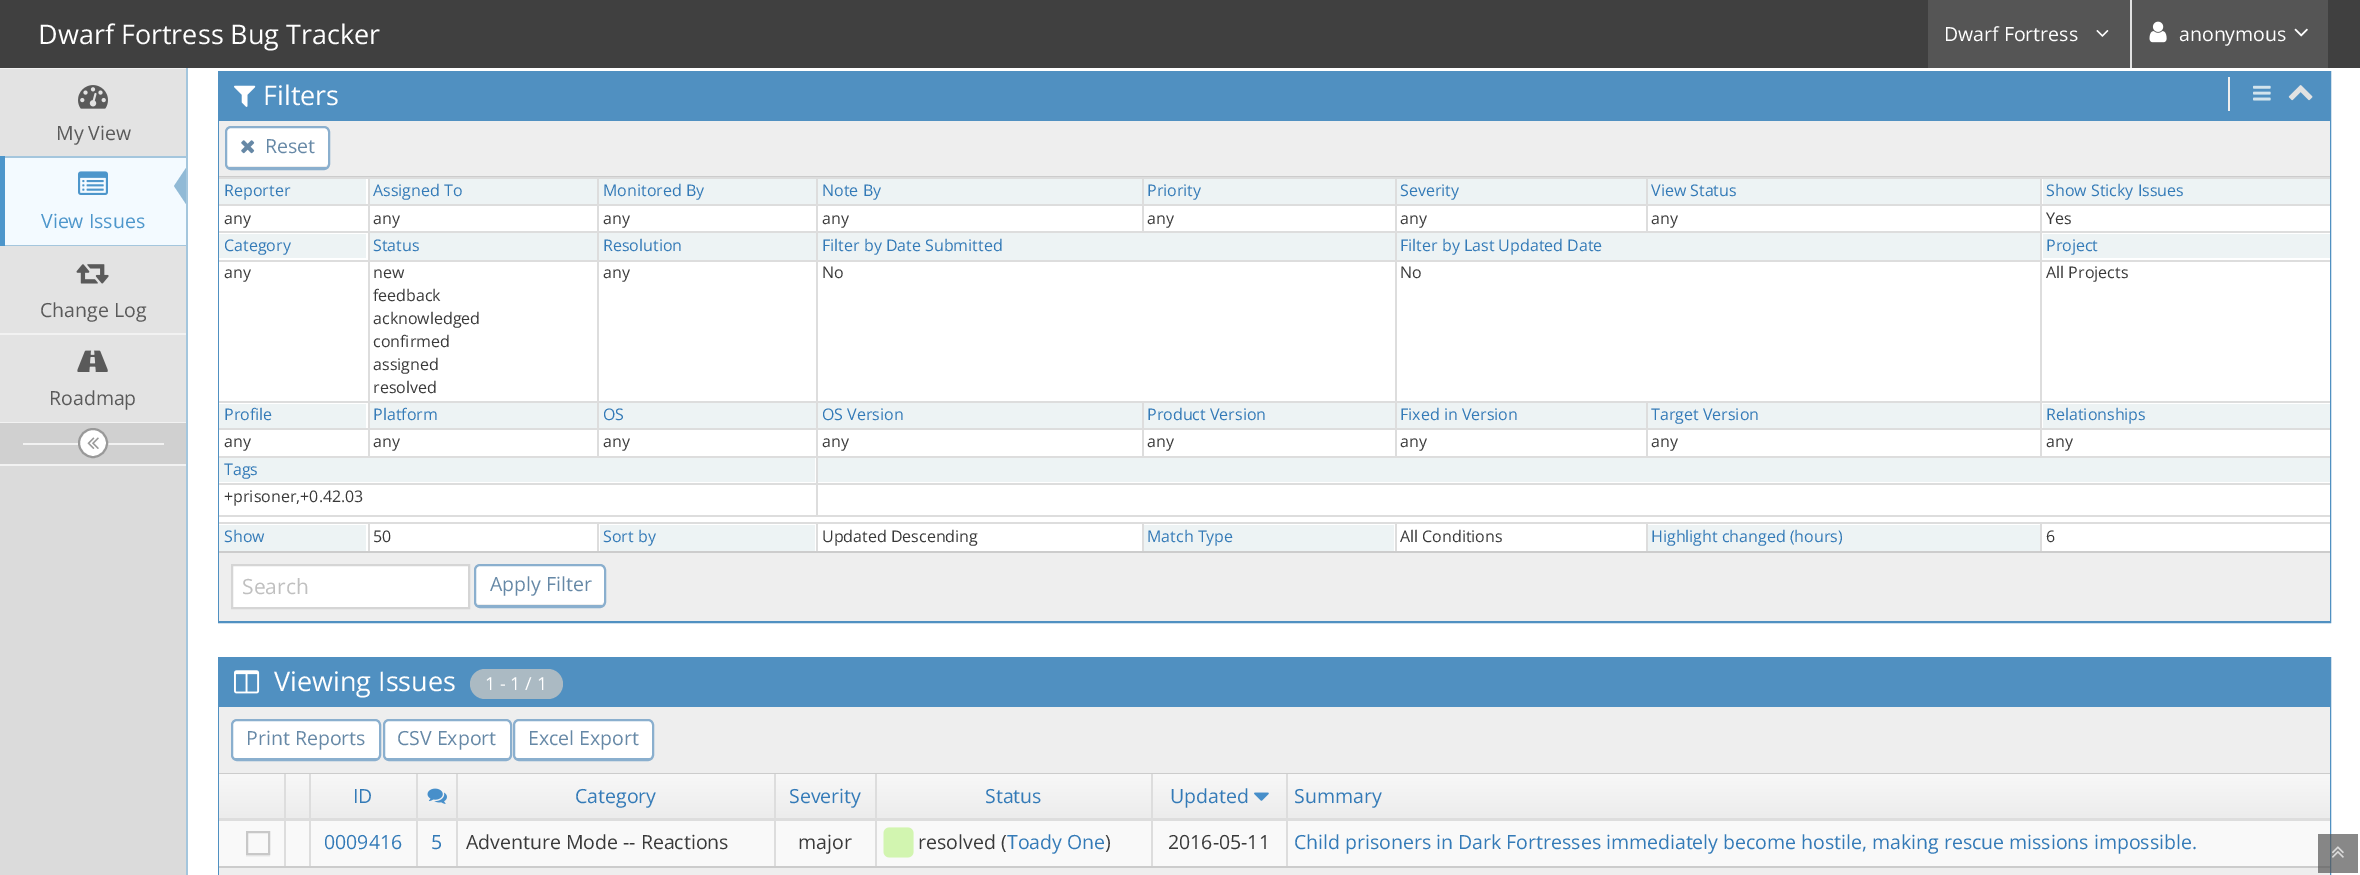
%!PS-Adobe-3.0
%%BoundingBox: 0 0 2360 875
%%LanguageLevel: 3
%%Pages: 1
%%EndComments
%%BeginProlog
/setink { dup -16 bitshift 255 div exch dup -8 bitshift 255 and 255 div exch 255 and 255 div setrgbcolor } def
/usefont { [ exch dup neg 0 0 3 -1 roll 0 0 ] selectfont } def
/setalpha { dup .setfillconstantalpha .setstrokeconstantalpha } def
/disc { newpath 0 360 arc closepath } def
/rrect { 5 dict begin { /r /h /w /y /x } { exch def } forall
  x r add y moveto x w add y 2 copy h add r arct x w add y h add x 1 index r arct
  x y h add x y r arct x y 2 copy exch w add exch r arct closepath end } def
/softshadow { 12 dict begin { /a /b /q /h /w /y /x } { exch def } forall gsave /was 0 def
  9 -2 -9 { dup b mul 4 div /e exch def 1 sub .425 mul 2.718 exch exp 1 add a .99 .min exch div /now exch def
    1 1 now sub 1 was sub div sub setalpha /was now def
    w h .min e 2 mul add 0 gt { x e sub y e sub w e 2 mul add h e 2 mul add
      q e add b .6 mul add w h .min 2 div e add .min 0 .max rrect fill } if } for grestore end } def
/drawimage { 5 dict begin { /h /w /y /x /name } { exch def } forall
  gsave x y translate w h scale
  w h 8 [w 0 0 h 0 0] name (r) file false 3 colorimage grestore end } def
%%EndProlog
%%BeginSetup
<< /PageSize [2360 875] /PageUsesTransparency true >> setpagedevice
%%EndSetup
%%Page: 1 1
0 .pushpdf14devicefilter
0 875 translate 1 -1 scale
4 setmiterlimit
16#FFFFFF setink
0 0 2360 875 rectfill
16#404040 setink
0 0 2360 68 rectfill
/OpenSans-Regular 27 usefont
16#FFFFFF setink
38 44 moveto (Dwarf Fortress Bug Tracker) show
16#555555 setink
1928 0 202 68 rectfill
/OpenSans-Regular 19.5 usefont
16#FFFFFF setink
1944 41 moveto (Dwarf Fortress) show
(img1.raw) 2096 30 13 7 drawimage
16#E1E1E1 setink
2130 0 2 68 rectfill
16#555555 setink
2132 0 196 68 rectfill
(img2.raw) 2149 21 18 22 drawimage
16#FFFFFF setink
2179 41 moveto (anonymous) show
(img3.raw) 2294 28 14 9 drawimage
[
    [0 466 186 409 16#DBDBDB]
    [186 68 2 807 16#A4C6DD]
    [0 68 186 1 16#F2F2F2]
    [0 69 186 87 16#E3E3E3]
] { aload pop setink rectfill } forall
(img4.raw) 78 85 30 24 drawimage
16#5A5A5A setink
56 140 moveto (My View) show
[
    [0 156 186 2 16#A4C6DD]
    [0 245 186 1 16#A4C6DD]
    [0 156 5 90 16#4D96CB]
    [5 158 181 87 16#F3FAFF]
] { aload pop setink rectfill } forall
(img5.raw) 78 171 30 24 drawimage
16#91BAD6 setink
186 168 moveto 186 204 lineto 174 186 lineto closepath fill
16#4D96CB setink
41 228 moveto (View Issues) show
16#E3E3E3 setink
0 246 186 87 rectfill
(img6.raw) 76 264 33 20 drawimage
16#5A5A5A setink
40 317 moveto (Change Log) show
[
    [0 333 186 2 16#F2F2F2]
    [0 422 186 1 16#F2F2F2]
    [0 335 186 87 16#E3E3E3]
] { aload pop setink rectfill } forall
(img7.raw) 77 350 31 22 drawimage
16#5A5A5A setink
49 405 moveto (Roadmap) show
[
    [0 423 186 41 16#D0D0D0]
    [0 464 186 2 16#F2F2F2]
    [23 443 141 2 16#F2F2F2]
] { aload pop setink rectfill } forall
16#FFFFFF setink
93 443 14 disc gsave fill grestore
16#999999 setink
2 setlinewidth
stroke
(img8.raw) 87 437 12 12 drawimage
16#5090C1 setink
219 72 2111 550 rectstroke
220 73 2109 46 rectfill
219 119 2111 2 rectfill
(img9.raw) 234 85 22 22 drawimage
/OpenSans-Regular 27 usefont
16#FFFFFF setink
263 105 moveto (Filters) show
16#EEEEEE setink
2228 77 2 34 rectfill
(img10.raw) 2253 85 18 16 drawimage
(img11.raw) 2288 85 25 16 drawimage
219 121 2111 55 rectfill
16#CCCCCC setink
219 176 2111 1 rectfill
16#FFFFFF setink
231 128 moveto 324 128 lineto 326 128 328 130 328 132 curveto 328 164 lineto 328 165 326 166 324 166 curveto 231 166 lineto 229 166 226 165 226 164 curveto 226 132 lineto 226 130 229 128 231 128 curveto closepath fill
16#8AAFCE setink
226 127 103 42 5 rrect stroke
228 167 99 1 rectfill
(img12.raw) 241 140 14 14 drawimage
/OpenSans-Regular 19.5 usefont
16#6688A6 setink
265 153 moveto (Reset) show
[
    [219 179 2111 372 16#FFFFFF]
    [219 179 147 25 16#EDF3F4]
    [2040 177 290 2 16#DDDDDD]
    [2040 204 290 2 16#DDDDDD]
    [2040 231 290 2 16#DDDDDD]
    [2040 260 290 2 16#DDDDDD]
    [2040 401 290 2 16#DDDDDD]
    [2040 428 290 2 16#DDDDDD]
    [816 456 1514 2 16#DDDDDD]
    [2040 428 2 30 16#DDDDDD]
    [1646 428 396 2 16#DDDDDD]
    [2040 401 2 28 16#DDDDDD]
    [1646 401 396 2 16#DDDDDD]
    [2040 260 2 142 16#DDDDDD]
    [1395 260 647 2 16#DDDDDD]
    [2040 231 2 30 16#DDDDDD]
    [1395 231 647 2 16#DDDDDD]
    [2040 204 2 29 16#DDDDDD]
    [1646 204 396 2 16#DDDDDD]
    [2040 177 2 29 16#DDDDDD]
    [1646 177 396 2 16#DDDDDD]
    [1646 204 2 29 16#DDDDDD]
    [1395 204 252 2 16#DDDDDD]
    [1646 177 2 29 16#DDDDDD]
    [1395 177 252 2 16#DDDDDD]
    [1646 428 2 30 16#DDDDDD]
    [1395 428 252 2 16#DDDDDD]
    [1646 401 2 28 16#DDDDDD]
    [1395 401 252 2 16#DDDDDD]
    [1395 428 2 30 16#DDDDDD]
    [1142 428 255 2 16#DDDDDD]
    [1395 401 2 28 16#DDDDDD]
    [1142 401 255 2 16#DDDDDD]
    [1395 260 2 142 16#DDDDDD]
    [816 260 581 2 16#DDDDDD]
    [1395 231 2 30 16#DDDDDD]
    [816 231 581 2 16#DDDDDD]
    [1395 204 2 29 16#DDDDDD]
    [1142 204 255 2 16#DDDDDD]
    [1395 177 2 29 16#DDDDDD]
    [1142 177 255 2 16#DDDDDD]
    [1142 204 2 29 16#DDDDDD]
    [816 204 327 2 16#DDDDDD]
    [1142 177 2 29 16#DDDDDD]
    [816 177 327 2 16#DDDDDD]
    [1142 428 2 30 16#DDDDDD]
    [816 428 327 2 16#DDDDDD]
    [1142 401 2 28 16#DDDDDD]
    [816 401 327 2 16#DDDDDD]
    [816 483 1514 2 16#DDDDDD]
    [816 515 1514 2 16#DDDDDD]
    [816 483 2 33 16#DDDDDD]
    [219 483 599 2 16#DDDDDD]
    [816 456 2 29 16#DDDDDD]
    [219 456 599 2 16#DDDDDD]
    [816 428 2 30 16#DDDDDD]
    [597 428 221 2 16#DDDDDD]
    [816 401 2 28 16#DDDDDD]
    [597 401 221 2 16#DDDDDD]
    [816 260 2 142 16#DDDDDD]
    [597 260 221 2 16#DDDDDD]
    [816 231 2 30 16#DDDDDD]
    [597 231 221 2 16#DDDDDD]
    [816 204 2 29 16#DDDDDD]
    [597 204 221 2 16#DDDDDD]
    [816 177 2 29 16#DDDDDD]
    [597 177 221 2 16#DDDDDD]
    [597 428 2 30 16#DDDDDD]
    [368 428 231 2 16#DDDDDD]
    [597 401 2 28 16#DDDDDD]
    [368 401 231 2 16#DDDDDD]
    [597 260 2 142 16#DDDDDD]
    [368 260 231 2 16#DDDDDD]
    [597 231 2 30 16#DDDDDD]
    [368 231 231 2 16#DDDDDD]
    [597 204 2 29 16#DDDDDD]
    [368 204 231 2 16#DDDDDD]
    [597 177 2 29 16#DDDDDD]
    [368 177 231 2 16#DDDDDD]
    [368 428 2 30 16#DDDDDD]
    [219 428 150 2 16#DDDDDD]
    [368 401 2 28 16#DDDDDD]
    [219 401 150 2 16#DDDDDD]
    [368 260 2 142 16#DDDDDD]
    [219 260 150 2 16#DDDDDD]
    [368 231 2 30 16#DDDDDD]
    [219 231 150 2 16#DDDDDD]
    [368 204 2 29 16#DDDDDD]
    [219 204 150 2 16#DDDDDD]
    [368 177 2 29 16#DDDDDD]
    [219 177 150 2 16#DDDDDD]
] { aload pop setink rectfill } forall
/OpenSans-Regular 16 usefont
16#337AB7 setink
224 196 moveto (Reporter) show
16#EDF3F4 setink
370 179 227 25 rectfill
16#337AB7 setink
373 196 moveto (Assigned To) show
16#EDF3F4 setink
599 179 217 25 rectfill
16#337AB7 setink
603 196 moveto (Monitored By) show
16#EDF3F4 setink
818 179 324 25 rectfill
16#337AB7 setink
822 196 moveto (Note By) show
16#EDF3F4 setink
1144 179 251 25 rectfill
16#337AB7 setink
1147 196 moveto (Priority) show
16#EDF3F4 setink
1397 179 249 25 rectfill
16#337AB7 setink
1400 196 moveto (Severity) show
16#EDF3F4 setink
1648 179 392 25 rectfill
16#337AB7 setink
1651 196 moveto (View Status) show
16#EDF3F4 setink
2043 179 287 25 rectfill
16#337AB7 setink
2046 196 moveto (Show Sticky Issues) show
16#393939 setink
[
    [(any) 224 224]
    [(any) 373 224]
    [(any) 603 224]
    [(any) 822 224]
    [(any) 1147 224]
    [(any) 1400 224]
    [(any) 1651 224]
    [(Yes) 2046 224]
] { aload pop moveto show } forall
16#EDF3F4 setink
219 234 147 24 rectfill
16#337AB7 setink
224 251 moveto (Category) show
16#EDF3F4 setink
370 233 227 27 rectfill
16#337AB7 setink
373 251 moveto (Status) show
16#EDF3F4 setink
599 233 217 27 rectfill
16#337AB7 setink
603 251 moveto (Resolution) show
16#EDF3F4 setink
818 233 577 27 rectfill
16#337AB7 setink
822 251 moveto (Filter by Date Submitted) show
16#EDF3F4 setink
1397 233 643 27 rectfill
16#337AB7 setink
1400 251 moveto (Filter by Last Updated Date) show
16#EDF3F4 setink
2043 234 287 24 rectfill
16#337AB7 setink
2046 251 moveto (Project) show
16#393939 setink
[
    [(any) 224 278]
    [(new) 373 278]
    [(feedback) 373 301]
    [(acknowledged) 373 324]
    [(confirmed) 373 347]
    [(assigned) 373 370]
    [(resolved) 373 393]
    [(any) 603 278]
    [(No) 822 278]
    [(No) 1400 278]
    [(All Projects) 2046 278]
] { aload pop moveto show } forall
16#EDF3F4 setink
219 404 147 24 rectfill
16#337AB7 setink
224 420 moveto (Profile) show
16#EDF3F4 setink
370 403 227 25 rectfill
16#337AB7 setink
373 420 moveto (Platform) show
16#EDF3F4 setink
599 403 217 25 rectfill
16#337AB7 setink
603 420 moveto (OS) show
16#EDF3F4 setink
818 403 324 25 rectfill
16#337AB7 setink
822 420 moveto (OS Version) show
16#EDF3F4 setink
1144 403 251 25 rectfill
16#337AB7 setink
1147 420 moveto (Product Version) show
16#EDF3F4 setink
1397 403 249 25 rectfill
16#337AB7 setink
1400 420 moveto (Fixed in Version) show
16#EDF3F4 setink
1648 403 392 25 rectfill
16#337AB7 setink
1651 420 moveto (Target Version) show
16#EDF3F4 setink
2043 404 287 24 rectfill
16#337AB7 setink
2046 420 moveto (Relationships) show
16#393939 setink
[
    [(any) 224 447]
    [(any) 373 447]
    [(any) 603 447]
    [(any) 822 447]
    [(any) 1147 447]
    [(any) 1400 447]
    [(any) 1651 447]
    [(any) 2046 447]
] { aload pop moveto show } forall
16#EDF3F4 setink
219 458 596 24 rectfill
16#337AB7 setink
224 475 moveto (Tags) show
16#EDF3F4 setink
818 458 1512 24 rectfill
16#DDDDDD setink
219 515 599 2 rectfill
16#393939 setink
224 502 moveto (+prisoner,+0.42.03) show
[
    [219 525 147 26 16#EDF3F4]
    [2040 522 290 2 16#DDDDDD]
    [2040 522 2 29 16#DDDDDD]
    [1646 522 396 2 16#DDDDDD]
    [1646 522 2 29 16#DDDDDD]
    [1395 522 252 2 16#DDDDDD]
    [1395 522 2 29 16#DDDDDD]
    [1142 522 255 2 16#DDDDDD]
    [1142 522 2 29 16#DDDDDD]
    [816 522 327 2 16#DDDDDD]
    [816 522 2 29 16#DDDDDD]
    [597 522 221 2 16#DDDDDD]
    [597 522 2 29 16#DDDDDD]
    [368 522 231 2 16#DDDDDD]
    [368 522 2 29 16#DDDDDD]
    [219 522 150 2 16#DDDDDD]
] { aload pop setink rectfill } forall
16#337AB7 setink
224 542 moveto (Show) show
16#393939 setink
373 542 moveto (50) show
16#EDF3F4 setink
600 525 215 26 rectfill
16#337AB7 setink
603 542 moveto (Sort by) show
16#393939 setink
822 542 moveto (Updated Descending) show
16#EDF3F4 setink
1144 525 250 26 rectfill
16#337AB7 setink
1147 542 moveto (Match Type) show
16#393939 setink
1400 542 moveto (All Conditions) show
16#EDF3F4 setink
1648 525 392 26 rectfill
16#337AB7 setink
1651 542 moveto (Highlight changed \(hours\)) show
16#393939 setink
2046 542 moveto (6) show
16#EEEEEE setink
219 553 2111 68 rectfill
16#CCCCCC setink
219 551 2111 2 rectfill
16#FFFFFF setink
232 565 moveto 469 565 lineto 469 608 lineto 232 608 lineto closepath gsave fill grestore
16#D5D5D5 setink
stroke
/OpenSans-Regular 21 usefont
16#C0C0C0 setink
242 594 moveto (Search) show
16#FFFFFF setink
480 566 moveto 600 566 lineto 602 566 604 568 604 570 curveto 604 602 lineto 604 603 602 604 600 604 curveto 480 604 lineto 478 604 476 603 476 602 curveto 476 570 lineto 476 568 478 566 480 566 curveto closepath fill
16#8AAFCE setink
475 565 130 42 5 rrect stroke
477 605 126 1 rectfill
/OpenSans-Regular 19.5 usefont
16#6688A6 setink
490 591 moveto (Apply Filter) show
16#5090C1 setink
219 658 2111 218 rectstroke
220 659 2109 48 rectfill
(img13.raw) 234 670 26 24 drawimage
/OpenSans-Regular 27 usefont
16#FFFFFF setink
274 691 moveto (Viewing Issues) show
16#ABBAC3 setink
470 669 93 30 15 rrect fill
/OpenSans-Regular 18 usefont
16#FFFFFF setink
485 690 moveto (1 - 1 / 1) show
16#EEEEEE setink
219 707 2111 66 rectfill
16#CCCCCC setink
219 773 2111 1 rectfill
16#FFFFFF setink
237 720 moveto 375 720 lineto 377 720 380 722 380 724 curveto 380 754 lineto 380 756 377 758 375 758 curveto 237 758 lineto 235 758 232 756 232 754 curveto 232 724 lineto 232 722 235 720 237 720 curveto closepath fill
16#8AAFCE setink
232 720 148 40 5 rrect stroke
234 758 144 1 rectfill
/OpenSans-Regular 19.5 usefont
16#6688A6 setink
246 745 moveto (Print Reports) show
16#FFFFFF setink
388 720 moveto 506 720 lineto 508 720 510 722 510 724 curveto 510 754 lineto 510 756 508 758 506 758 curveto 388 758 lineto 386 758 384 756 384 754 curveto 384 724 lineto 384 722 386 720 388 720 curveto closepath fill
16#8AAFCE setink
384 720 127 40 5 rrect stroke
386 758 123 1 rectfill
16#6688A6 setink
397 745 moveto (CSV Export) show
16#FFFFFF setink
519 720 moveto 648 720 lineto 650 720 652 722 652 724 curveto 652 754 lineto 652 756 650 758 648 758 curveto 519 758 lineto 517 758 514 756 514 754 curveto 514 724 lineto 514 722 517 720 519 720 curveto closepath fill
16#8AAFCE setink
514 720 139 40 5 rrect stroke
516 758 135 1 rectfill
16#6688A6 setink
528 745 moveto (Excel Export) show
gsave 219 774 moveto 2330 774 lineto 2330 818 lineto 219 818 lineto closepath clip newpath
<< /ShadingType 2 /ColorSpace /DeviceRGB /Coords [1274 774 1274 819] /Extend [true true] /Function << /FunctionType 2 /Domain [0 1] /C0 [0.973 0.973 0.973] /C1 [0.925 0.925 0.925] /N 1 >> >> shfill grestore
16#337AB7 setink
353 803 moveto (ID) show
(img14.raw) 427 788 20 16 drawimage
[
    [(Category) 575 803]
    [(Severity) 789 803]
    [(Status) 985 803]
    [(Updated) 1170 803]
] { aload pop moveto show } forall
(img15.raw) 1254 792 15 9 drawimage
[
    [219 821 2111 45 16#F9F9F9]
    [284 774 2 92 16#DDDDDD]
    [309 774 2 92 16#DDDDDD]
    [416 774 2 92 16#DDDDDD]
    [456 774 2 92 16#DDDDDD]
    [774 774 2 92 16#DDDDDD]
    [875 774 2 92 16#DDDDDD]
    [1151 774 2 92 16#DDDDDD]
    [1286 774 2 92 16#DDDDDD]
    [219 818 2111 3 16#DDDDDD]
] { aload pop setink rectfill } forall
16#337AB7 setink
1294 803 moveto (Summary) show
gsave
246 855 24 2 rectclip
16#000000 setink
246 833 24 24 0 1.5 0.05 softshadow
grestore
16#C8C8C8 setink
247 832 22 22 rectstroke
16#337AB7 setink
324 849 moveto (0009416) show
431 849 moveto (5) show
16#393939 setink
466 849 moveto (Adventure Mode -- Reactions) show
798 849 moveto (major) show
(img16.raw) 883 827 31 31 drawimage
918 849 moveto (resolved \() show
16#337AB7 setink
1007 849 moveto (Toady One) show
16#393939 setink
1105 849 moveto (\)) show
1168 849 moveto (2016-05-11) show
16#337AB7 setink
1294 849 moveto (Child prisoners in Dark Fortresses immediately become hostile, making rescue missions impossible.) show
[
    [219 868 2111 7 16#EEEEEE]
    [219 866 2111 2 16#CCCCCC]
] { aload pop setink rectfill } forall
0.7 setalpha
[
    [2318 834 40 39 16#555555]
] { aload pop setink rectfill } forall
1 setalpha
(img17.raw) 2332 846 12 12 drawimage
.poppdf14devicefilter showpage
%%EOF
